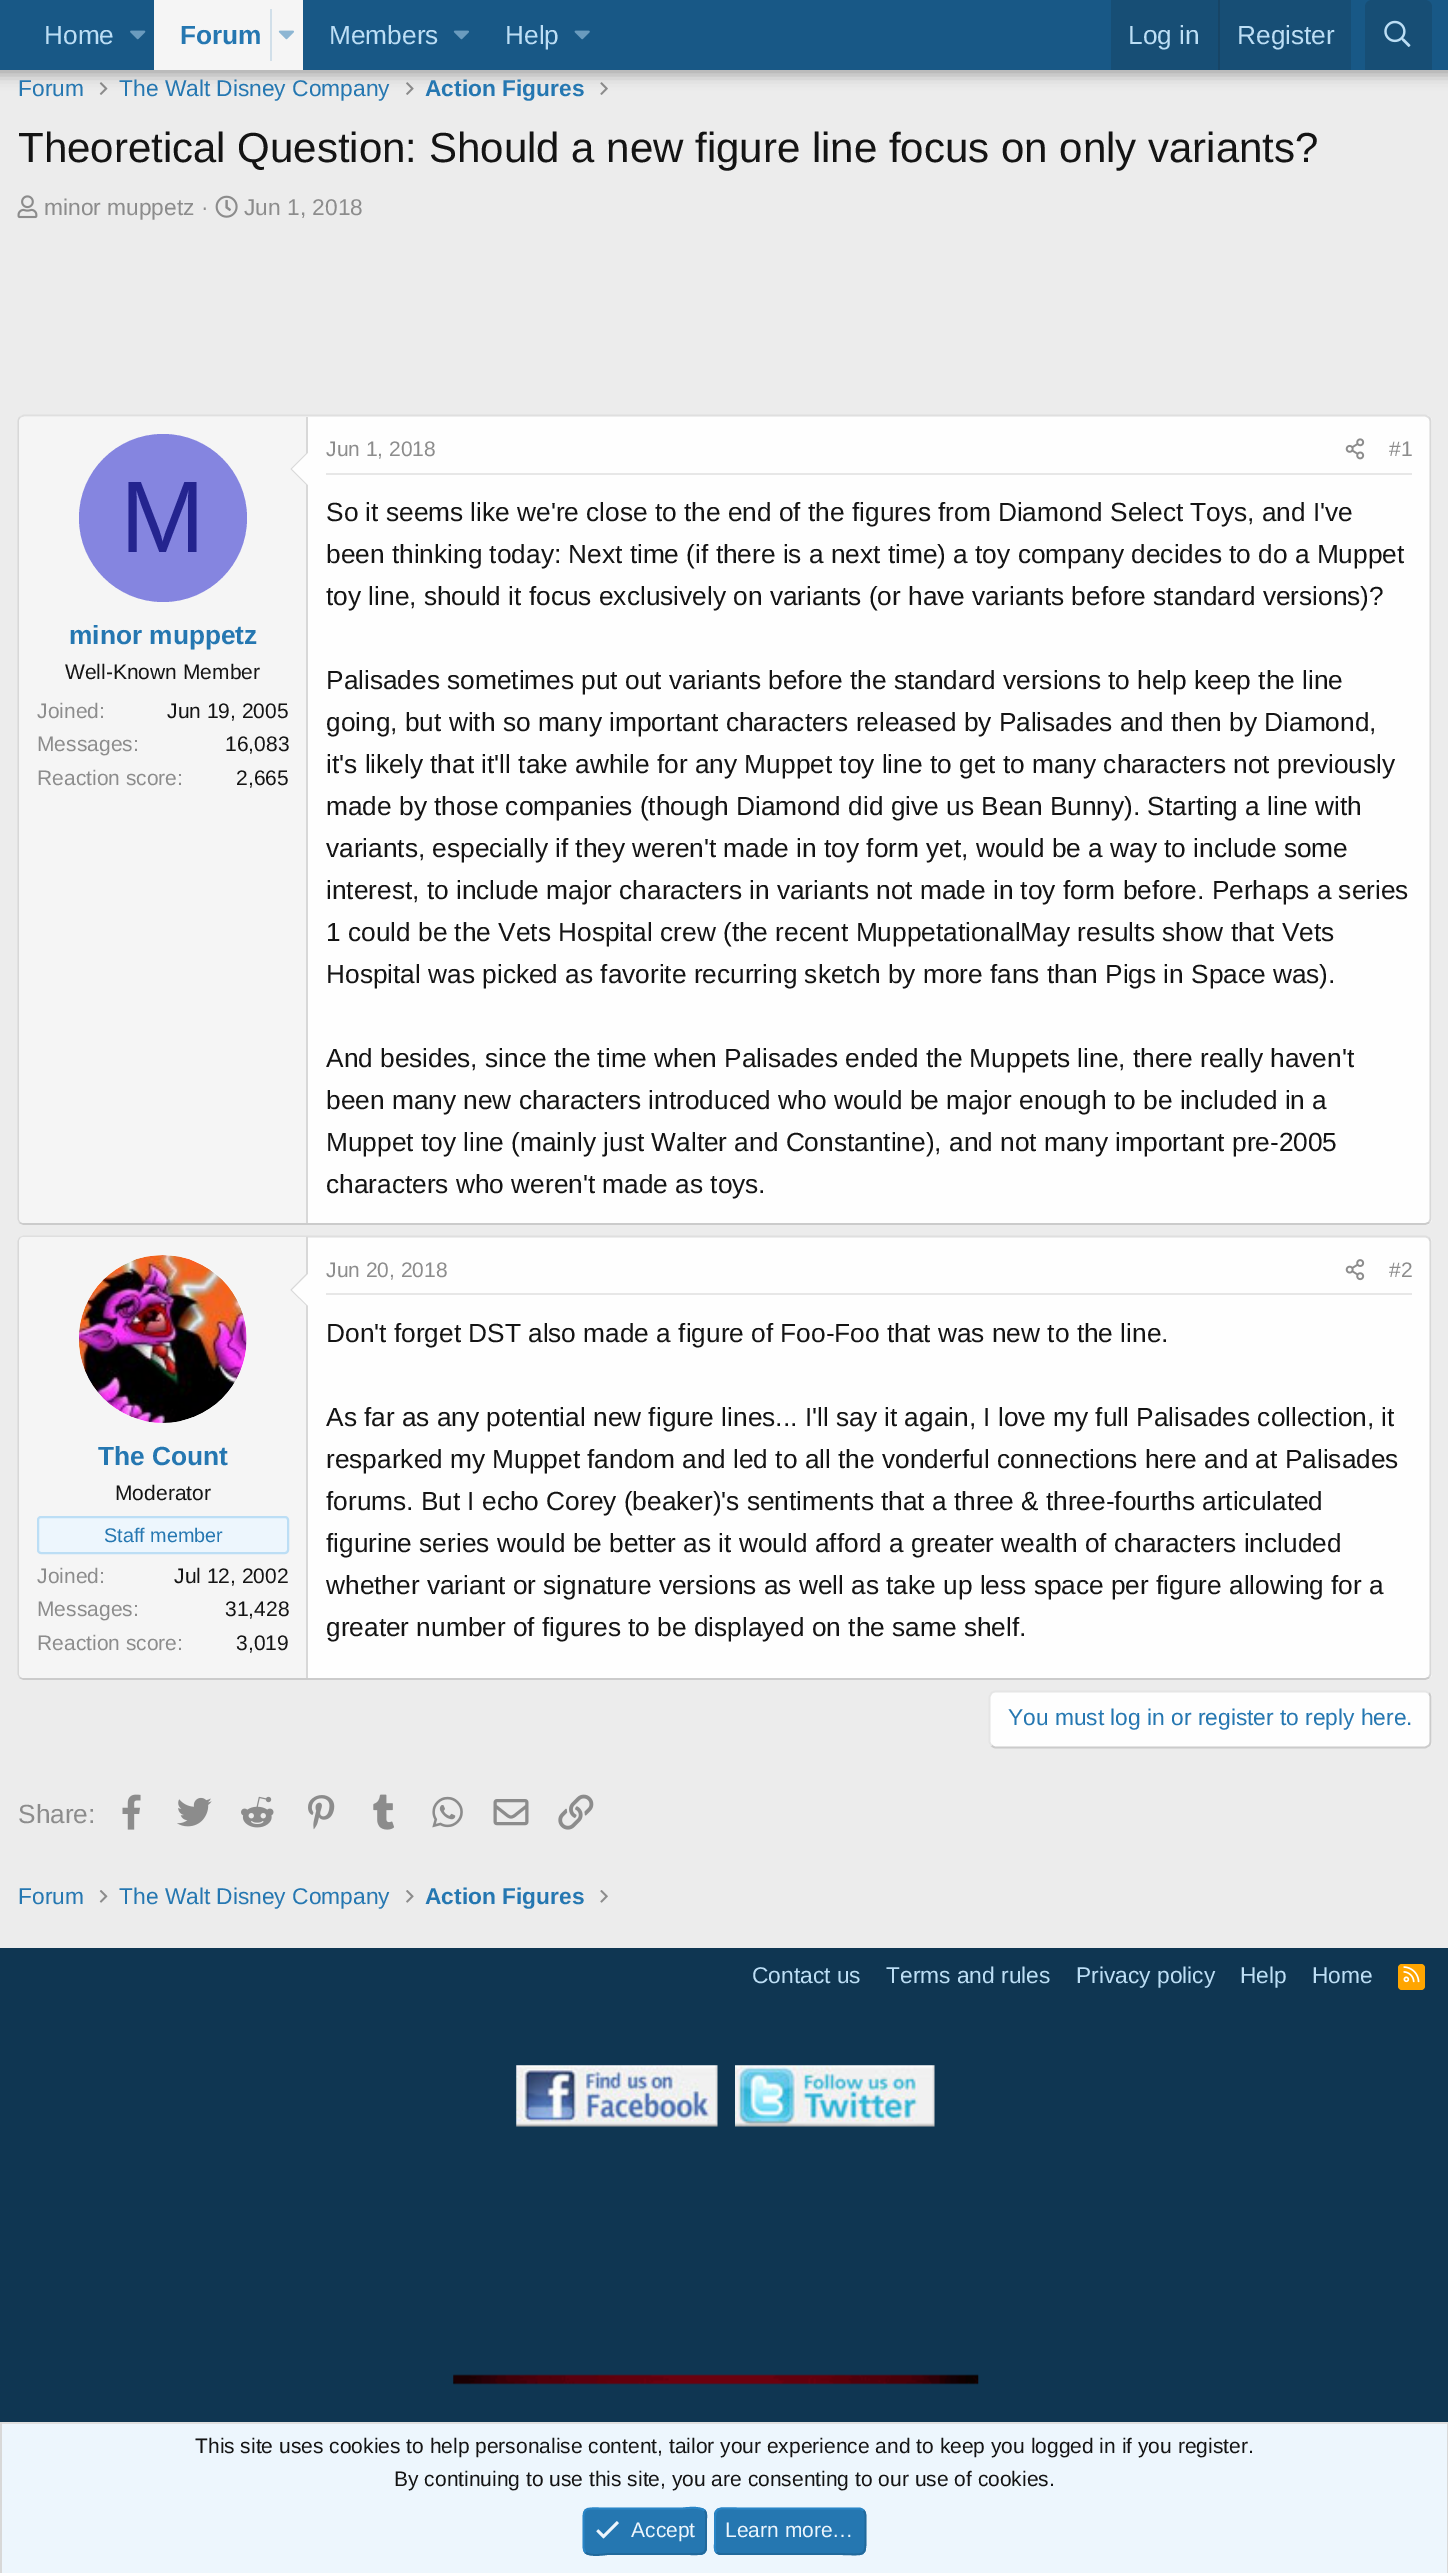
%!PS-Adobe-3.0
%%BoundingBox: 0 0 1448 2573
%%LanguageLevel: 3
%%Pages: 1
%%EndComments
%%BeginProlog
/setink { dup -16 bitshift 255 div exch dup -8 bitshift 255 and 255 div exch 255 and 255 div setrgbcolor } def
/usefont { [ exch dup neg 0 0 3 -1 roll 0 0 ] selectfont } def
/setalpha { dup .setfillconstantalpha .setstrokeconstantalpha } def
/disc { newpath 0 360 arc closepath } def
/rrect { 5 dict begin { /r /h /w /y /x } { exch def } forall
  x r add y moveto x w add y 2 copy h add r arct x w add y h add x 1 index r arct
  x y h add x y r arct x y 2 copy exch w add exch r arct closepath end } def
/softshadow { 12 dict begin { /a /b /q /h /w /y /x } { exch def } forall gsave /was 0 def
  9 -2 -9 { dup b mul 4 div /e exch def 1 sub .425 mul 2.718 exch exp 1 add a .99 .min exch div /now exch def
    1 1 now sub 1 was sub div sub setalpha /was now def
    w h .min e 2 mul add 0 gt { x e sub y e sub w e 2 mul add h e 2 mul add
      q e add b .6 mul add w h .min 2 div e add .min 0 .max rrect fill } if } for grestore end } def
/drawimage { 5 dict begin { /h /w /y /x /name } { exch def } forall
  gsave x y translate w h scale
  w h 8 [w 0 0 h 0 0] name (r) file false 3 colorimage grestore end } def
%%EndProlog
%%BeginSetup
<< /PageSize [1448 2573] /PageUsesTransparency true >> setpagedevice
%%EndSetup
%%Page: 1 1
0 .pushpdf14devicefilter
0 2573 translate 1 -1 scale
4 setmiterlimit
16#ECECEC setink
0 0 1448 2573 rectfill
(img6.raw) 99 82 9 13 drawimage
(img7.raw) 406 82 8 13 drawimage
(img8.raw) 600 82 8 13 drawimage
16#000000 setink
-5 -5 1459 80 0 7 0.3 softshadow
16#185886 setink
0 0 1448 70 rectfill
/LiberationSans-Regular 26.25 usefont
16#BCDEF5 setink
44 44 moveto (Home) show
(img1.raw) 130 30 16 10 drawimage
16#F5F5F5 setink
154 0 149 70 rectfill
/LiberationSans-Bold 26.25 usefont
16#2577B1 setink
180 44 moveto (Forum) show
16#D1DFE9 setink
270 9 2 52 rectfill
(img2.raw) 278 30 16 10 drawimage
/LiberationSans-Regular 26.25 usefont
16#BCDEF5 setink
329 44 moveto (Members) show
(img3.raw) 453 30 16 10 drawimage
505 44 moveto (Help) show
(img4.raw) 574 30 16 10 drawimage
16#174E75 setink
1111 0 240 70 rectfill
16#BCDEF5 setink
1128 44 moveto (Log in) show
16#174566 setink
1218 0 2 70 rectfill
16#BCDEF5 setink
1237 44 moveto (Register) show
16#174E75 setink
1372 0 moveto 1425 0 lineto 1429 0 1432 3 1432 7 curveto 1432 70 lineto 1365 70 lineto 1365 7 lineto 1365 3 1368 0 1372 0 curveto closepath fill
(img5.raw) 1384 20 27 27 drawimage
/LiberationSans-Regular 22.75 usefont
16#2577B1 setink
18 96 moveto (Forum) show
119 96 moveto (The Walt Disney Company) show
/LiberationSans-Bold 22.75 usefont
425 96 moveto (Action Figures) show
/LiberationSans-Regular 42 usefont
16#141414 setink
18 162 moveto (Theoretical Question: Should a new figure line focus on only variants?) show
(img9.raw) 17 195 21 24 drawimage
/LiberationSans-Regular 22.75 usefont
16#8C8C8C setink
44 215 moveto (minor muppetz ·) show
(img10.raw) 215 195 23 23 drawimage
244 215 moveto (Jun 1, 2018) show
16#FEFEFE setink
18 415 1414 810 7 rrect fill
16#DFDFDF setink
1.8 setlinewidth
20 417.5 moveto 21.5 416.5 23 415.5 24.5 415.5 curveto 1424.5 415.5 lineto 1426 415.5 1427.5 416.5 1429 417.5 curveto stroke
16#D8D8D8 setink
1429 417.5 moveto 1430 418.5 1430.5 420 1430.5 422 curveto 1430.5 1218 lineto 1430.5 1219.5 1430 1221 1429 1222.5 curveto stroke
16#CBCBCB setink
1429 1222.5 moveto 1427.5 1223.5 1426 1224 1424.5 1224 curveto 24.5 1224 lineto 23 1224 21.5 1223.5 20 1222.5 curveto stroke
16#D8D8D8 setink
20 1222.5 moveto 19 1221 18.5 1219.5 18.5 1218 curveto 18.5 422 lineto 18.5 420 19 418.5 20 417.5 curveto stroke
16#F5F5F5 setink
24 417 moveto 308 417 lineto 308 1223 lineto 24 1223 lineto 21 1223 19 1221 19 1218 curveto 19 422 lineto 19 419 21 417 24 417 curveto closepath fill
16#D8D8D8 setink
306 417 2 806 rectfill
308 451.5 moveto 308 486.5 lineto 290.5 469 lineto closepath fill
16#FEFEFE setink
308 453 moveto 308 485 lineto 292 469 lineto closepath fill
16#8585E0 setink
163 518 84 disc fill
/LiberationSans-Regular 102 usefont
16#24248F setink
120 552 moveto (M) show
/LiberationSans-Bold 26.25 usefont
16#2577B1 setink
69 644 moveto (minor muppetz) show
/LiberationSans-Regular 21 usefont
16#141414 setink
65 679 moveto (Well-Known Member) show
16#8C8C8C setink
37 718 moveto (Joined:) show
16#141414 setink
167 718 moveto (Jun 19, 2005) show
16#8C8C8C setink
37 751 moveto (Messages:) show
16#141414 setink
225 751 moveto (16,083) show
16#8C8C8C setink
37 785 moveto (Reaction score:) show
16#141414 setink
236 785 moveto (2,665) show
16#E7E7E7 setink
326 473 1086 2 rectfill
16#8C8C8C setink
326 456 moveto (Jun 1, 2018) show
(img11.raw) 1345 438 20 22 drawimage
1389 456 moveto (#1) show
/LiberationSans-Regular 26.25 usefont
16#141414 setink
[
    [(So it seems like we're close to the end of the figures from Diamond Select Toys, and I've) 326 521]
    [(been thinking today: Next time \(if there is a next time\) a toy company decides to do a Muppet) 326 563]
    [(toy line, should it focus exclusively on variants \(or have variants before standard versions\)?) 326 605]
    [(Palisades sometimes put out variants before the standard versions to help keep the line) 326 689]
    [(going, but with so many important characters released by Palisades and then by Diamond,) 326 731]
    [(it's likely that it'll take awhile for any Muppet toy line to get to many characters not previously) 326 773]
    [(made by those companies \(though Diamond did give us Bean Bunny\). Starting a line with) 326 815]
    [(variants, especially if they weren't made in toy form yet, would be a way to include some) 326 857]
    [(interest, to include major characters in variants not made in toy form before. Perhaps a series) 326 899]
    [(1 could be the Vets Hospital crew \(the recent MuppetationalMay results show that Vets) 326 941]
    [(Hospital was picked as favorite recurring sketch by more fans than Pigs in Space was\).) 326 983]
    [(And besides, since the time when Palisades ended the Muppets line, there really haven't) 326 1067]
    [(been many new characters introduced who would be major enough to be included in a) 326 1109]
    [(Muppet toy line \(mainly just Walter and Constantine\), and not many important pre-2005) 326 1151]
    [(characters who weren't made as toys.) 326 1193]
] { aload pop moveto show } forall
16#FEFEFE setink
18 1236 1414 444 7 rrect fill
16#DFDFDF setink
20 1238 moveto 21.5 1237 23 1236.5 24.5 1236.5 curveto 1424.5 1236.5 lineto 1426 1236.5 1427.5 1237 1429 1238 curveto stroke
16#D8D8D8 setink
1429 1238 moveto 1430 1239.5 1430.5 1241 1430.5 1242.5 curveto 1430.5 1673 lineto 1430.5 1674.5 1430 1676 1429 1677.5 curveto stroke
16#CBCBCB setink
1429 1677.5 moveto 1427.5 1678.5 1426 1679 1424.5 1679 curveto 24.5 1679 lineto 23 1679 21.5 1678.5 20 1677.5 curveto stroke
16#D8D8D8 setink
20 1677.5 moveto 19 1676 18.5 1674.5 18.5 1673 curveto 18.5 1242.5 lineto 18.5 1241 19 1239.5 20 1238 curveto stroke
16#F5F5F5 setink
24 1237 moveto 308 1237 lineto 308 1678 lineto 24 1678 lineto 21 1678 19 1676 19 1673 curveto 19 1242 lineto 19 1239 21 1237 24 1237 curveto closepath fill
16#D8D8D8 setink
306 1237 2 441 rectfill
16#FEFEFE setink
163 1339 84 disc fill
(img12.raw) 79 1255 168 168 drawimage
16#D8D8D8 setink
308 1272 moveto 308 1307 lineto 290.5 1290 lineto closepath fill
16#FEFEFE setink
308 1274 moveto 308 1305.5 lineto 292 1290 lineto closepath fill
/LiberationSans-Bold 26.25 usefont
16#2577B1 setink
98 1465 moveto (The Count) show
/LiberationSans-Regular 21 usefont
16#141414 setink
115 1500 moveto (Moderator) show
16#EDF6FD setink
38 1517 250 36 3 rrect gsave fill grestore
16#BCDEF5 setink
2 setlinewidth
stroke
/LiberationSans-Regular 19.75 usefont
16#2577B1 setink
104 1542 moveto (Staff member) show
/LiberationSans-Regular 21 usefont
16#8C8C8C setink
37 1583 moveto (Joined:) show
16#141414 setink
174 1583 moveto (Jul 12, 2002) show
16#8C8C8C setink
37 1616 moveto (Messages:) show
16#141414 setink
225 1616 moveto (31,428) show
16#8C8C8C setink
37 1650 moveto (Reaction score:) show
16#141414 setink
236 1650 moveto (3,019) show
16#E7E7E7 setink
326 1293 1086 2 rectfill
16#8C8C8C setink
326 1277 moveto (Jun 20, 2018) show
(img13.raw) 1345 1259 20 22 drawimage
1389 1277 moveto (#2) show
/LiberationSans-Regular 26.25 usefont
16#141414 setink
[
    [(Don't forget DST also made a figure of Foo-Foo that was new to the line.) 326 1342]
    [(As far as any potential new figure lines... I'll say it again, I love my full Palisades collection, it) 326 1426]
    [(resparked my Muppet fandom and led to all the vonderful connections here and at Palisades) 326 1468]
    [(forums. But I echo Corey \(beaker\)'s sentiments that a three & three-fourths articulated) 326 1510]
    [(figurine series would be better as it would afford a greater wealth of characters included) 326 1552]
    [(whether variant or signature versions as well as take up less space per figure allowing for a) 326 1594]
    [(greater number of figures to be displayed on the same shelf.) 326 1636]
] { aload pop moveto show } forall
16#FEFEFE setink
989 1691 443 57 7 rrect fill
16#CBCBCB setink
1.8 setlinewidth
1429 1693 moveto 1430 1694.5 1430.5 1696 1430.5 1697.5 curveto 1430.5 1741 lineto 1430.5 1743 1430 1744.5 1429 1745.5 curveto 1427.5 1746.5 1426 1747.5 1424.5 1747.5 curveto 996 1747.5 lineto 994 1747.5 992.5 1746.5 991.5 1745.5 curveto stroke
16#E5E5E5 setink
991.5 1745.5 moveto 990.5 1744.5 989.5 1743 989.5 1741 curveto 989.5 1697.5 lineto 989.5 1696 990.5 1694.5 991.5 1693 curveto 992.5 1692 994 1691.5 996 1691.5 curveto 1424.5 1691.5 lineto 1426 1691.5 1427.5 1692 1429 1693 curveto stroke
/LiberationSans-Regular 22.75 usefont
16#2577B1 setink
1008 1725 moveto (You must log in or register to reply here.) show
/LiberationSans-Regular 26.25 usefont
16#8C8C8C setink
18 1823 moveto (Share:) show
(img14.raw) 122 1794 19 36 drawimage
(img15.raw) 177 1797 35 30 drawimage
(img16.raw) 241 1796 33 32 drawimage
(img17.raw) 308 1795 27 35 drawimage
(img18.raw) 373 1794 21 36 drawimage
(img19.raw) 432 1796 31 32 drawimage
(img20.raw) 493 1799 36 27 drawimage
(img21.raw) 558 1794 36 36 drawimage
/LiberationSans-Regular 22.75 usefont
16#2577B1 setink
18 1904 moveto (Forum) show
(img22.raw) 99 1890 9 13 drawimage
119 1904 moveto (The Walt Disney Company) show
(img23.raw) 406 1890 8 13 drawimage
/LiberationSans-Bold 22.75 usefont
425 1904 moveto (Action Figures) show
(img24.raw) 600 1890 8 13 drawimage
16#0F3652 setink
0 1948 1448 474 rectfill
/LiberationSans-Regular 22.75 usefont
16#BCDEF5 setink
[
    [(Contact us) 752 1983]
    [(Terms and rules) 886 1983]
    [(Privacy policy) 1076 1983]
    [(Help) 1240 1983]
    [(Home) 1312 1983]
] { aload pop moveto show } forall
16#FFA500 setink
1398 1964 27 26 4 rrect fill
(img25.raw) 1403 1966 17 17 drawimage
(img26.raw) 516 2065 202 62 drawimage
(img27.raw) 735 2065 200 62 drawimage
(img28.raw) 453 2374 526 11 drawimage
[
    [2 2424 1445 149 16#EDF6FD]
    [0 2422 1448 2 16#DFDFDF]
    [1447 2422 1 151 16#D8D8D8]
    [0 2422 2 151 16#D8D8D8]
] { aload pop setink rectfill } forall
/LiberationSans-Regular 21 usefont
16#141414 setink
195 2453 moveto (This site uses cookies to help personalise content, tailor your experience and to keep you logged in if you register.) show
394 2486 moveto (By continuing to use this site, you are consenting to our use of cookies.) show
16#2577B1 setink
583 2508 124 47 7 rrect fill
16#21699C setink
704.5 2510.5 moveto 707 2513 706 2517 706 2520.5 curveto 706 2531.5 lineto 706 2557.5 709 2554 681.5 2554 curveto 608 2554 lineto 606.5 2554 590 2557 585.5 2552.5 curveto stroke
16#2985C6 setink
585.5 2552.5 moveto 583 2550 583.5 2545.5 583.5 2542.5 curveto 583.5 2531.5 lineto 583.5 2505 580.5 2508.5 608 2508.5 curveto 681.5 2508.5 lineto 683.5 2508.5 700 2506 704.5 2510.5 curveto stroke
(img29.raw) 596 2521 23 18 drawimage
16#EDF6FD setink
631 2537 moveto (Accept) show
16#2577B1 setink
714 2508 152 47 7 rrect fill
16#21699C setink
863.5 2510.5 moveto 866 2513 865.5 2517 865.5 2520.5 curveto 865.5 2531.5 lineto 865.5 2559.5 867.5 2554 836 2554 curveto 721 2554 lineto 719.5 2554 718 2553.5 716.5 2552.5 curveto stroke
16#2985C6 setink
716.5 2552.5 moveto 714 2550 715 2545.5 715 2542.5 curveto 715 2531.5 lineto 715 2503.5 712.5 2508.5 744 2508.5 curveto 859 2508.5 lineto 861 2508.5 862.5 2509.5 863.5 2510.5 curveto stroke
16#EDF6FD setink
725 2537 moveto (Learn more…) show
.poppdf14devicefilter showpage
%%EOF
